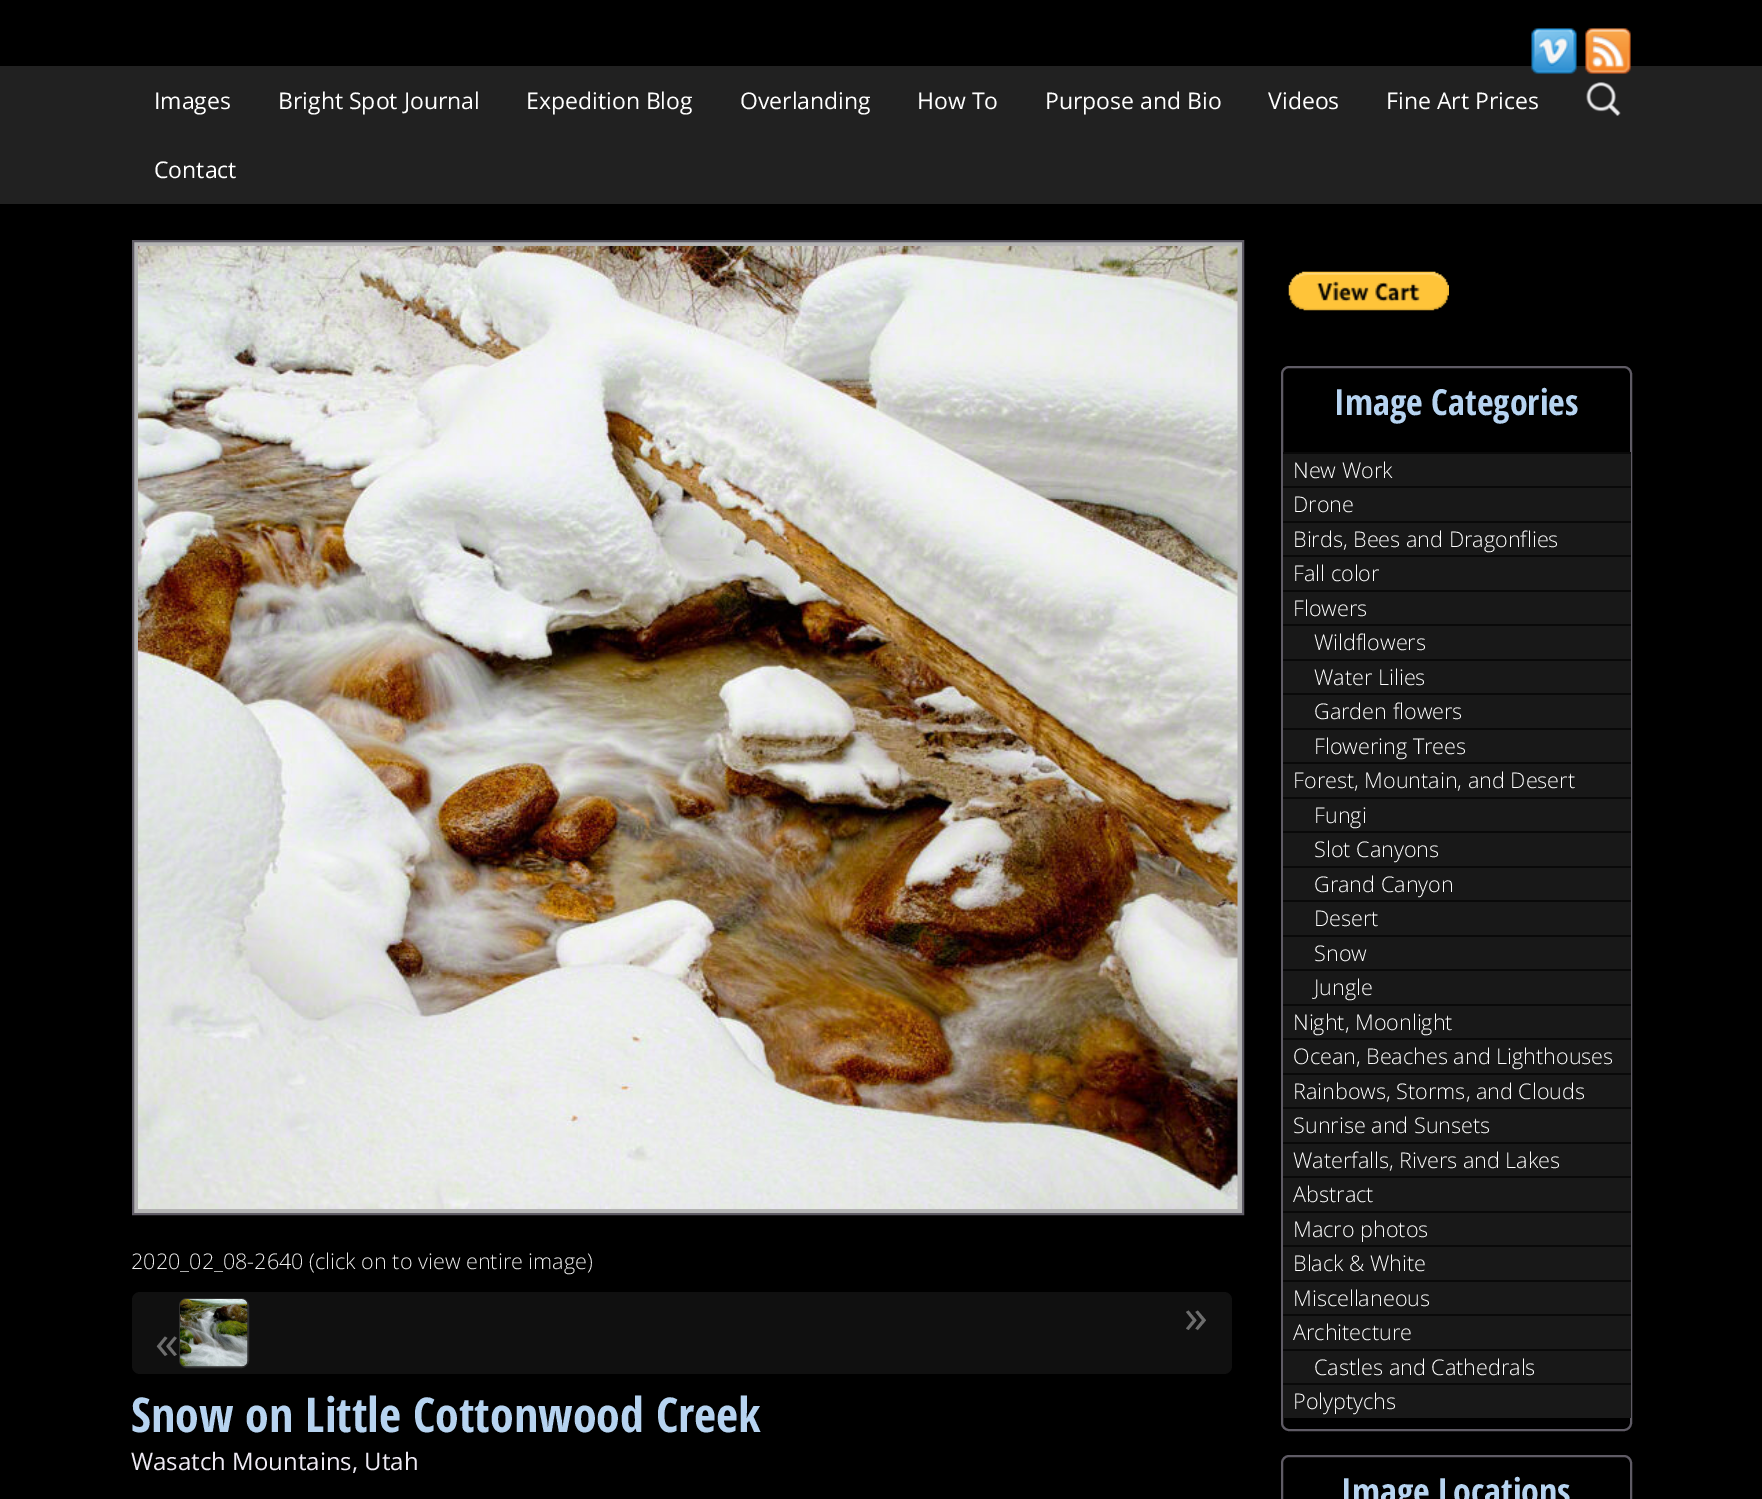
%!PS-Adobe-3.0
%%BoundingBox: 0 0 1762 1499
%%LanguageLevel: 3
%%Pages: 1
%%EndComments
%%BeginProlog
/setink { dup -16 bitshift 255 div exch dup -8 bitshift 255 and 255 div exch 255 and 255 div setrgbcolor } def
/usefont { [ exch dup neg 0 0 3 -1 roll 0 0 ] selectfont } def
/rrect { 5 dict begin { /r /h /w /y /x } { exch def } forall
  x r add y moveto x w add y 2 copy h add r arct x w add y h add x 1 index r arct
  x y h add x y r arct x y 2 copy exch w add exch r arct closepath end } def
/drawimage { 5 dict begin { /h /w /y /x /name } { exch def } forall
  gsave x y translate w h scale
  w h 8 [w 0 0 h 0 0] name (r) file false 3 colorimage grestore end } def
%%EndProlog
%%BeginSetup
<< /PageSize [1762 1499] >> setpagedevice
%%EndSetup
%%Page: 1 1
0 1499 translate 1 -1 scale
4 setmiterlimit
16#000000 setink
0 0 1762 1499 rectfill
16#212121 setink
0 66 1762 138 rectfill
(img1.raw) 1531 28 46 46 drawimage
(img2.raw) 1585 28 46 46 drawimage
/OpenSans-Regular 23 usefont
16#FFFFFF setink
[
    [(Images) 154 109]
    [(Bright Spot Journal) 278 109]
    [(Expedition Blog) 526 109]
    [(Overlanding) 740 109]
    [(How To) 917 109]
    [(Purpose and Bio) 1045 109]
    [(Videos) 1268 109]
    [(Fine Art Prices) 1386 109]
    [(Contact) 154 178]
] { aload pop moveto show } forall
(img3.raw) 1586 82 35 34 drawimage
16#B3B3B3 setink
133 241 moveto 1243 241 lineto 1243 1214 lineto 133 1214 lineto closepath gsave fill grestore
16#5F5B65 setink
2 setlinewidth
stroke
(img4.raw) 138 246 1100 963 drawimage
/OpenSans-Light 21.6 usefont
16#EBEBEB setink
131 1269 moveto (2020_02_08-2640 \(click on to view entire image\)) show
16#101010 setink
132 1292 1100 82 8 rrect fill
/OpenSans-Regular 48 usefont
16#6E6E6E setink
1184 1333 moveto (») show
155 1359 moveto («) show
16#2E2E2E setink
180 1299 68 68 7 rrect stroke
(img5.raw) 180 1299 68 68 drawimage
/OpenSansCondensed-Bold 48 usefont
16#B6D3F0 setink
131 1432 moveto (Snow on Little Cottonwood Creek) show
/OpenSans-Regular 24 usefont
16#EFEBF5 setink
131 1470 moveto (Wasatch Mountains, Utah) show
(img6.raw) 1288 271 161 40 drawimage
16#5F5B65 setink
1282 367 349 1063 7 rrect stroke
/OpenSansCondensed-Bold 36 usefont
16#B6D3F0 setink
1334 415 moveto (Image Categories) show
16#181818 setink
1283 454 348 32 rectfill
16#090909 setink
1283 452 348 2 rectfill
/OpenSans-Light 21.6 usefont
16#FFFFFF setink
1293 478 moveto (New Work) show
16#181818 setink
1283 488 348 33 rectfill
16#090909 setink
1283 486 348 2 rectfill
16#FFFFFF setink
1293 512 moveto (Drone) show
16#181818 setink
1283 523 348 32 rectfill
16#090909 setink
1283 521 348 2 rectfill
16#FFFFFF setink
1293 547 moveto (Birds, Bees and Dragonflies) show
16#181818 setink
1283 557 348 33 rectfill
16#090909 setink
1283 555 348 2 rectfill
16#FFFFFF setink
1293 581 moveto (Fall color) show
16#181818 setink
1283 592 348 32 rectfill
16#090909 setink
1283 590 348 2 rectfill
16#FFFFFF setink
1293 616 moveto (Flowers) show
16#181818 setink
1283 626 348 33 rectfill
16#090909 setink
1283 624 348 2 rectfill
16#FFFFFF setink
1314 650 moveto (Wildflowers) show
16#181818 setink
1283 661 348 32 rectfill
16#090909 setink
1283 659 348 2 rectfill
16#FFFFFF setink
1314 685 moveto (Water Lilies) show
16#181818 setink
1283 695 348 33 rectfill
16#090909 setink
1283 693 348 2 rectfill
16#FFFFFF setink
1314 719 moveto (Garden flowers) show
16#181818 setink
1283 730 348 32 rectfill
16#090909 setink
1283 728 348 2 rectfill
16#FFFFFF setink
1314 754 moveto (Flowering Trees) show
16#181818 setink
1283 764 348 33 rectfill
16#090909 setink
1283 762 348 2 rectfill
16#FFFFFF setink
1293 788 moveto (Forest, Mountain, and Desert) show
16#181818 setink
1283 799 348 32 rectfill
16#090909 setink
1283 797 348 2 rectfill
16#FFFFFF setink
1314 823 moveto (Fungi) show
16#181818 setink
1283 833 348 33 rectfill
16#090909 setink
1283 831 348 2 rectfill
16#FFFFFF setink
1314 857 moveto (Slot Canyons) show
16#181818 setink
1283 868 348 32 rectfill
16#090909 setink
1283 866 348 2 rectfill
16#FFFFFF setink
1314 892 moveto (Grand Canyon) show
16#181818 setink
1283 902 348 33 rectfill
16#090909 setink
1283 900 348 2 rectfill
16#FFFFFF setink
1314 926 moveto (Desert) show
16#181818 setink
1283 937 348 32 rectfill
16#090909 setink
1283 935 348 2 rectfill
16#FFFFFF setink
1314 961 moveto (Snow) show
16#181818 setink
1283 971 348 33 rectfill
16#090909 setink
1283 969 348 2 rectfill
16#FFFFFF setink
1314 995 moveto (Jungle) show
16#181818 setink
1283 1006 348 32 rectfill
16#090909 setink
1283 1004 348 2 rectfill
16#FFFFFF setink
1293 1030 moveto (Night, Moonlight) show
16#181818 setink
1283 1040 348 33 rectfill
16#090909 setink
1283 1038 348 2 rectfill
16#FFFFFF setink
1293 1064 moveto (Ocean, Beaches and Lighthouses) show
16#181818 setink
1283 1075 348 32 rectfill
16#090909 setink
1283 1073 348 2 rectfill
16#FFFFFF setink
1293 1099 moveto (Rainbows, Storms, and Clouds) show
16#181818 setink
1283 1109 348 33 rectfill
16#090909 setink
1283 1107 348 2 rectfill
16#FFFFFF setink
1293 1133 moveto (Sunrise and Sunsets) show
16#181818 setink
1283 1144 348 32 rectfill
16#090909 setink
1283 1142 348 2 rectfill
16#FFFFFF setink
1293 1168 moveto (Waterfalls, Rivers and Lakes) show
16#181818 setink
1283 1178 348 33 rectfill
16#090909 setink
1283 1176 348 2 rectfill
16#FFFFFF setink
1293 1202 moveto (Abstract) show
16#181818 setink
1283 1213 348 32 rectfill
16#090909 setink
1283 1211 348 2 rectfill
16#FFFFFF setink
1293 1237 moveto (Macro photos) show
16#181818 setink
1283 1247 348 33 rectfill
16#090909 setink
1283 1245 348 2 rectfill
16#FFFFFF setink
1293 1271 moveto (Black & White) show
16#181818 setink
1283 1282 348 32 rectfill
16#090909 setink
1283 1280 348 2 rectfill
16#FFFFFF setink
1293 1306 moveto (Miscellaneous) show
16#181818 setink
1283 1316 348 33 rectfill
16#090909 setink
1283 1314 348 2 rectfill
16#FFFFFF setink
1293 1340 moveto (Architecture) show
16#181818 setink
1283 1351 348 32 rectfill
16#090909 setink
1283 1349 348 2 rectfill
16#FFFFFF setink
1314 1375 moveto (Castles and Cathedrals) show
16#181818 setink
1283 1385 348 33 rectfill
16#090909 setink
1283 1383 348 2 rectfill
16#FFFFFF setink
1293 1409 moveto (Polyptychs) show
16#5F5B65 setink
1282 1456 349 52 7 rrect stroke
/OpenSansCondensed-Bold 36 usefont
16#B6D3F0 setink
1341 1504 moveto (Image Locations) show
showpage
%%EOF
